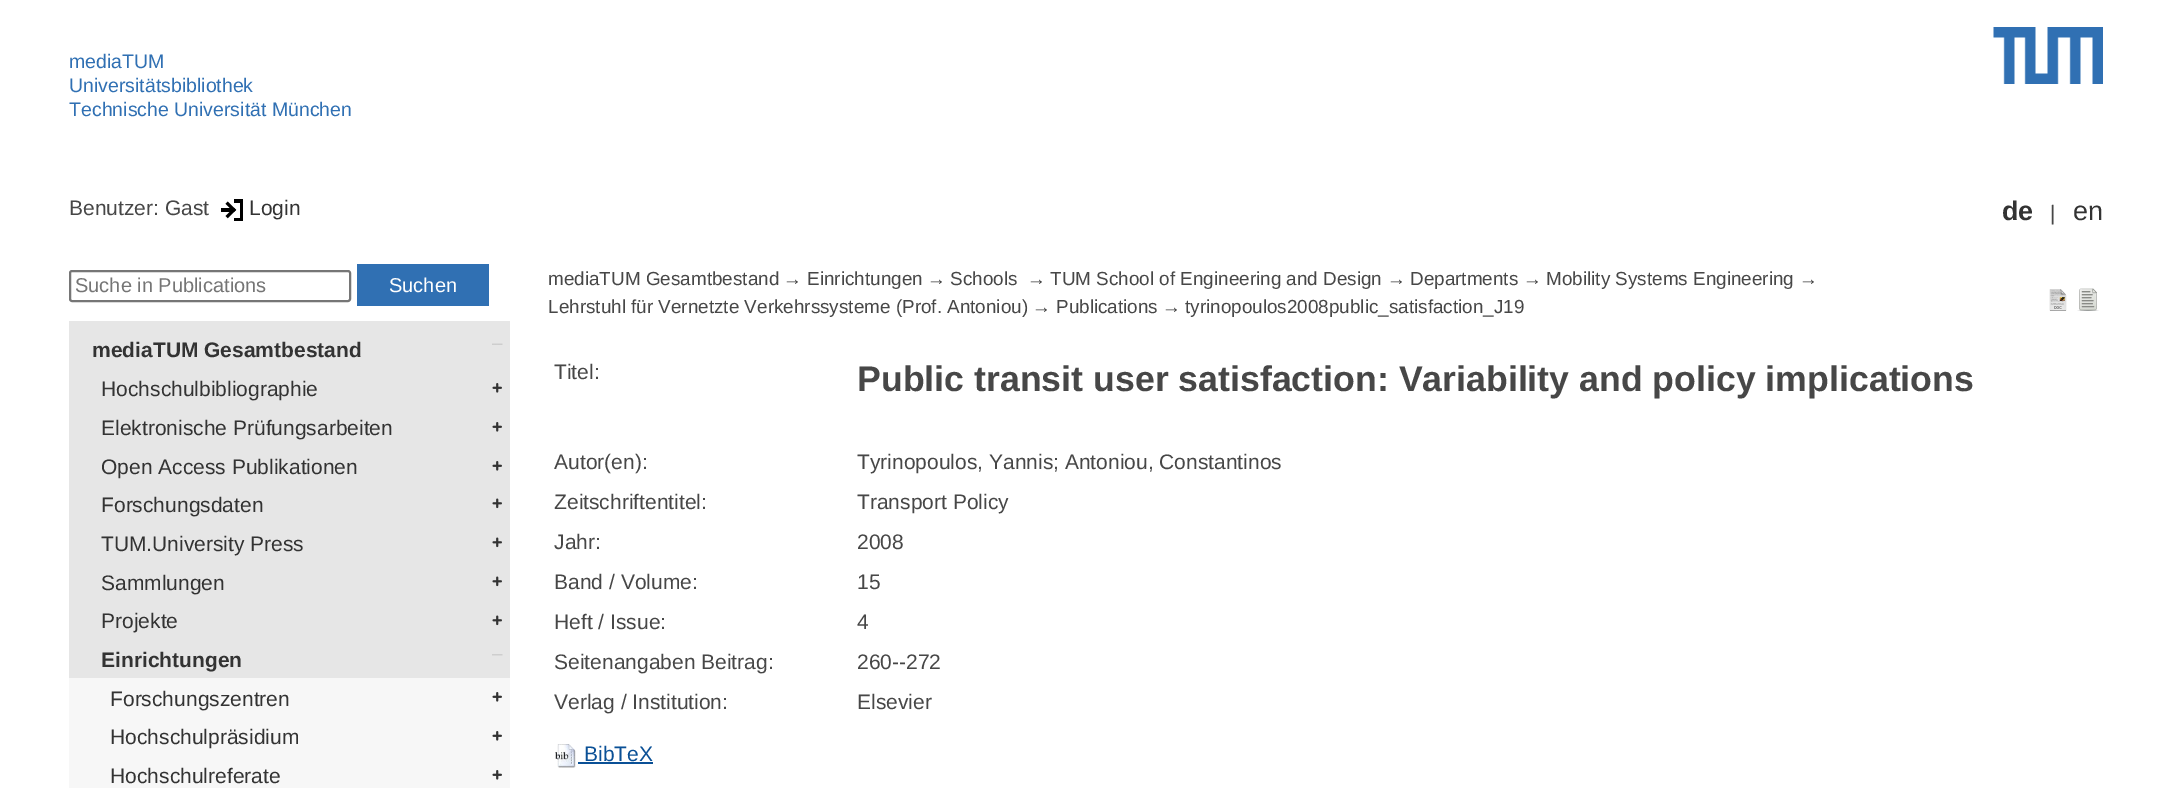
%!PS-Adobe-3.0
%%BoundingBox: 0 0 2171 788
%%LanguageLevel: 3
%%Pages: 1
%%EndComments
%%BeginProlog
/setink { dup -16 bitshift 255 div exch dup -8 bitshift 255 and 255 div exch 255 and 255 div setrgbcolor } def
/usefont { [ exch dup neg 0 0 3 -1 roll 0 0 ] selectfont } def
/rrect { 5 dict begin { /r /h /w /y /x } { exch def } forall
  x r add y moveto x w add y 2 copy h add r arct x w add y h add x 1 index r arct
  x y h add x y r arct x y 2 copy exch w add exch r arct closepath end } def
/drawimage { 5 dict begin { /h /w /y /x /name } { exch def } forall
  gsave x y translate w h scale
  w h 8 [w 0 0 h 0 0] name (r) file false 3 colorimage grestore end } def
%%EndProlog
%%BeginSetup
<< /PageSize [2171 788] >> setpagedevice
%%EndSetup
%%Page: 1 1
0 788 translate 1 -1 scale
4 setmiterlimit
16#FFFFFF setink
0 0 2171 788 rectfill
/LiberationSans-Regular 19.5 usefont
16#3070B3 setink
[
    [(mediaTUM) 69 68]
    [(Universitätsbibliothek) 69 92]
    [(Technische Universität München) 69 116]
] { aload pop moveto show } forall
(img1.raw) 1993 27 110 57 drawimage
/LiberationSans-Regular 21 usefont
16#474747 setink
69 215 moveto (Benutzer: Gast) show
(img2.raw) 221 199 22 22 drawimage
16#333333 setink
249 215 moveto (Login) show
/LiberationSans-Bold 27 usefont
2002 220 moveto (de) show
/LiberationSans-Regular 21 usefont
16#474747 setink
2050 220 moveto (|) show
/LiberationSans-Regular 27 usefont
16#333333 setink
2073 220 moveto (en) show
16#767676 setink
2 setlinewidth
70 271 280 30 2 rrect stroke
/LiberationSans-Regular 20 usefont
16#757575 setink
75 292 moveto (Suche in Publications) show
16#3070B3 setink
357 264 132 42 rectfill
16#FFFFFF setink
389 292 moveto (Suchen) show
16#E6E6E6 setink
69 321 441 357 rectfill
/LiberationSans-Bold 21 usefont
16#333333 setink
92 357 moveto (mediaTUM Gesamtbestand) show
(img3.raw) 492 343 11 2 drawimage
/LiberationSans-Regular 21 usefont
101 396 moveto (Hochschulbibliographie) show
(img4.raw) 492 383 10 10 drawimage
101 435 moveto (Elektronische Prüfungsarbeiten) show
(img4.raw) 492 422 10 10 drawimage
101 474 moveto (Open Access Publikationen) show
(img4.raw) 492 461 10 10 drawimage
101 512 moveto (Forschungsdaten) show
(img5.raw) 492 498 10 11 drawimage
101 551 moveto (TUM.University Press) show
(img5.raw) 492 537 10 11 drawimage
101 590 moveto (Sammlungen) show
(img5.raw) 492 576 10 11 drawimage
101 628 moveto (Projekte) show
(img5.raw) 492 615 10 11 drawimage
/LiberationSans-Bold 21 usefont
101 667 moveto (Einrichtungen) show
(img6.raw) 492 654 11 2 drawimage
16#F7F7F7 setink
69 678 441 110 rectfill
/LiberationSans-Regular 21 usefont
16#333333 setink
110 706 moveto (Forschungszentren) show
(img7.raw) 492 692 10 10 drawimage
110 744 moveto (Hochschulpräsidium) show
(img7.raw) 492 731 10 10 drawimage
110 783 moveto (Hochschulreferate) show
(img7.raw) 492 770 10 10 drawimage
/LiberationSans-Regular 18.9 usefont
16#474747 setink
[
    [(mediaTUM Gesamtbestand) 548 285]
    [(→) 783 285]
    [(Einrichtungen) 807 285]
    [(→) 927 285]
    [(Schools) 950 285]
    [(→) 1027 285]
    [(TUM School of Engineering and Design) 1050 285]
    [(→) 1387 285]
    [(Departments) 1410 285]
    [(→) 1523 285]
    [(Mobility Systems Engineering) 1546 285]
    [(→) 1799 285]
    [(Lehrstuhl für Vernetzte Verkehrssysteme \(Prof. Antoniou\)) 548 313]
    [(→) 1032 313]
    [(Publications) 1056 313]
    [(→) 1162 313]
    [(tyrinopoulos2008public_satisfaction_J19) 1185 313]
] { aload pop moveto show } forall
(img8.raw) 2049 289 18 22 drawimage
(img9.raw) 2077 288 22 23 drawimage
/LiberationSans-Regular 21 usefont
554 379 moveto (Titel:) show
/LiberationSans-Bold 35.7 usefont
857 391 moveto (Public transit user satisfaction: Variability and policy implications) show
/LiberationSans-Regular 21 usefont
[
    [(Autor\(en\):) 554 469]
    [(Tyrinopoulos, Yannis; Antoniou, Constantinos) 857 469]
    [(Zeitschriftentitel:) 554 509]
    [(Transport Policy) 857 509]
    [(Jahr:) 554 549]
    [(2008) 857 549]
    [(Band / Volume:) 554 589]
    [(15) 857 589]
    [(Heft / Issue:) 554 629]
    [(4) 857 629]
    [(Seitenangaben Beitrag:) 554 669]
    [(260--272) 857 669]
    [(Verlag / Institution:) 554 709]
    [(Elsevier) 857 709]
] { aload pop moveto show } forall
(img10.raw) 555 744 21 24 drawimage
16#0A5096 setink
584 761 moveto (BibTeX) show
578 762 75 2 rectfill
showpage
%%EOF
